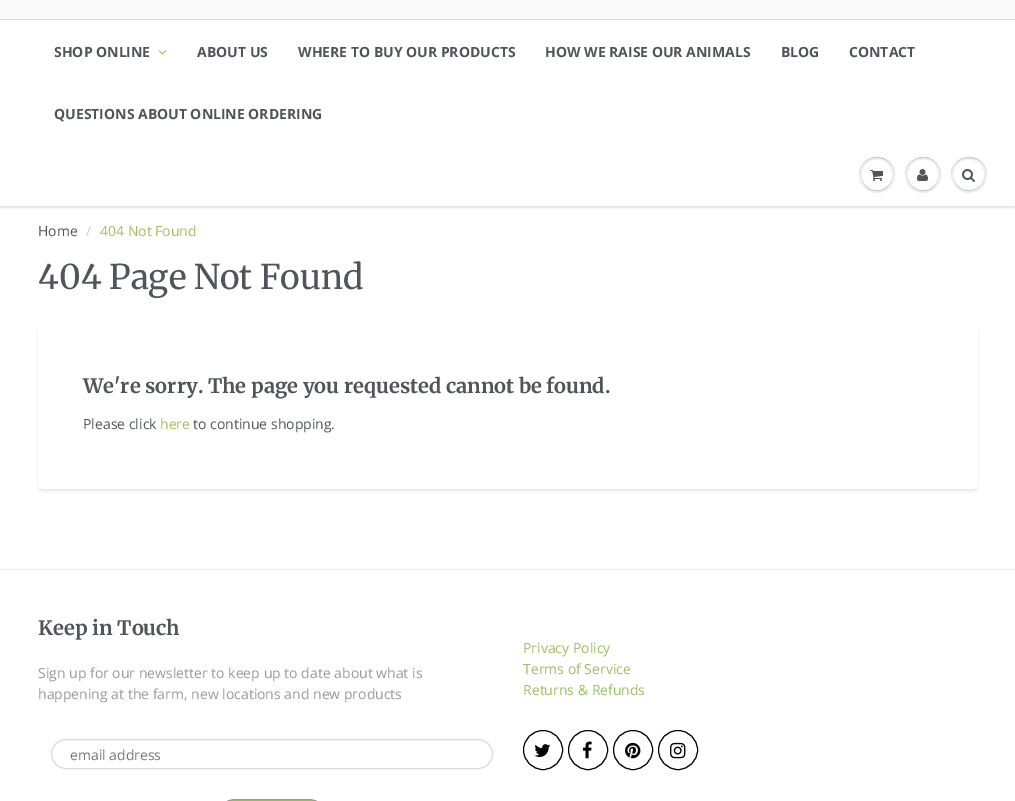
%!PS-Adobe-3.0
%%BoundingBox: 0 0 1015 801
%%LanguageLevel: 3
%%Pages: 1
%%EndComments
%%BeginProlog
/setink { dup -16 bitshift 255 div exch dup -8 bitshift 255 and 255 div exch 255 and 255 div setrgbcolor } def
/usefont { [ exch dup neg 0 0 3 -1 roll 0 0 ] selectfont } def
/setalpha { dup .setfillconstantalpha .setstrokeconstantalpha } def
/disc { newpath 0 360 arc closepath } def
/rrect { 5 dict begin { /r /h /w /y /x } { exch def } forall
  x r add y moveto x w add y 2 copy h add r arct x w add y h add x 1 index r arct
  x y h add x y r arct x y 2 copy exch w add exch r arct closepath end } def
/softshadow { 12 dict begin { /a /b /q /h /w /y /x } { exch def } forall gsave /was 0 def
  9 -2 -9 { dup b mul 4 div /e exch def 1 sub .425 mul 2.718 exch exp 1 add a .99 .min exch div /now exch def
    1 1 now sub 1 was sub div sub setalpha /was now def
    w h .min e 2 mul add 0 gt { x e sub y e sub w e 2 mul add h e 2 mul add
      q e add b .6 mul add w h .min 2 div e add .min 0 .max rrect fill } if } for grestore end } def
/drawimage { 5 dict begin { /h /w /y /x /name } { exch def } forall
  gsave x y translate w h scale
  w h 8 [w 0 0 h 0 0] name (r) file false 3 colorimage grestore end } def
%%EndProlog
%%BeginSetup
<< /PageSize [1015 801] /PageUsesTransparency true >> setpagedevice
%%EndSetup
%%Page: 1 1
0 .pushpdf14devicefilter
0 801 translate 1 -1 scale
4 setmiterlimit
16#FFFFFF setink
0 0 1015 801 rectfill
16#FAFAFA setink
0 0 1015 19 rectfill
gsave
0 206 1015 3 rectclip
16#0B191C setink
0 21 1015 187 0 1 0.12 softshadow
grestore
16#D7DBDB setink
0 19 1015 1 rectfill
/OpenSans-Bold 14 usefont
16#51545D setink
54 57 moveto (SHOP ONLINE) show
(img1.raw) 158 50 9 5 drawimage
[
    [(ABOUT US) 197 57]
    [(WHERE TO BUY OUR PRODUCTS) 298 57]
    [(HOW WE RAISE OUR ANIMALS) 545 57]
    [(BLOG) 781 57]
    [(CONTACT) 849 57]
    [(QUESTIONS ABOUT ONLINE ORDERING) 54 119]
] { aload pop moveto show } forall
16#EDEFEF setink
877 175 18 disc fill
16#C9CBCB setink
877 158 moveto 889 158 895 166.5 895 175.5 curveto 895 172 894 168 892 165 curveto 882 150 858.5 157.5 859 175.5 curveto 859 166.5 865 158 877 158 curveto closepath fill
892 175.5 moveto 891.5 194.5 862.5 194.5 862 175.5 curveto 861.5 190.5 881 197 889.5 184.5 curveto 891 182 892 178.5 892 175.5 curveto closepath fill
16#FFFFFF setink
877 175 15 disc fill
877 161 moveto 887 161 892 168 892 175.5 curveto 892 172.5 891 169 889.5 166.5 curveto 881 154 861.5 160.5 862 175.5 curveto 862 168 867 161 877 161 curveto closepath fill
(img2.raw) 870 170 13 11 drawimage
16#EDEFEF setink
923 175 18 disc fill
16#C9CBCB setink
923 158 moveto 935 158 941 166.5 941 175.5 curveto 941 172 940 168 938 165 curveto 928 150 904.5 157.5 905 175.5 curveto 905 166.5 911 158 923 158 curveto closepath fill
938 175.5 moveto 937.5 194.5 908.5 194.5 908 175.5 curveto 907.5 190.5 927 197 935.5 184.5 curveto 937 182 938 178.5 938 175.5 curveto closepath fill
16#FFFFFF setink
923 175 15 disc fill
923 161 moveto 933 161 938 168 938 175.5 curveto 938 172.5 937 169 935.5 166.5 curveto 927 154 907.5 160.5 908 175.5 curveto 908 168 913 161 923 161 curveto closepath fill
(img3.raw) 917 169 11 12 drawimage
16#EDEFEF setink
969 175 18 disc fill
16#C9CBCB setink
969 158 moveto 981 158 987 166.5 987 175.5 curveto 987 172 986 168 984 165 curveto 974 150 950.5 157.5 951 175.5 curveto 951 166.5 957 158 969 158 curveto closepath fill
984 175.5 moveto 983.5 194.5 954.5 194.5 954 175.5 curveto 954 178.5 955 182 956.5 184.5 curveto 965 197 984.5 190.5 984 175.5 curveto closepath fill
16#FFFFFF setink
969 175 15 disc fill
969 161 moveto 979 161 984 168 984 175.5 curveto 984 172.5 983 169 981.5 166.5 curveto 973 154 953.5 160.5 954 175.5 curveto 954 168 959 161 969 161 curveto closepath fill
(img4.raw) 962 169 13 13 drawimage
/OpenSans-Regular 14 usefont
16#51545D setink
38 236 moveto (Home) show
16#CCCCCC setink
86 236 moveto (/) show
16#9EC258 setink
100 236 moveto (404 Not Found) show
/Merriweather-Regular 34 usefont
16#51545D setink
38 289 moveto (404 Page Not Found) show
16#0B191C setink
38 325 940 166 5 1 0.1 softshadow
16#FFFFFF setink
38 323 940 166 5 rrect fill
/Merriweather-Bold 20 usefont
16#51545D setink
83 393 moveto -0.25 0 32 (We're sorry. The page you requested cannot be found.) widthshow
/OpenSans-Regular 14 usefont
83 429 moveto (Please click) show
16#9EC258 setink
160 429 moveto (here) show
16#51545D setink
193 429 moveto (to continue shopping.) show
16#ECEFEF setink
0 569 1015 1 rectfill
/Merriweather-Bold 20 usefont
16#51545D setink
38 635 moveto (Keep in Touch) show
/OpenSans-Regular 14 usefont
16#9A9A9A setink
38 678 moveto (Sign up for our newsletter to keep up to date about what is) show
38 699 moveto (happening at the farm, new locations and new products) show
16#D7DBDB setink
51.5 739.5 441 29 14.5 rrect stroke
16#757575 setink
70 760 moveto (email address) show
16#9EC258 setink
217.5 799.5 109 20 17.5 rrect gsave fill grestore
16#999999 setink
stroke
16#9BC061 setink
[
    [(Privacy Policy) 523 653]
    [(Terms of Service) 523 674]
    [(Returns & Refunds) 523 695]
] { aload pop moveto show } forall
16#000000 setink
543 750 19.5 disc stroke
(img5.raw) 534 744 17 13 drawimage
588 750 19.5 disc stroke
(img6.raw) 582 741 10 18 drawimage
633 750 19.5 disc stroke
(img7.raw) 625 742 16 17 drawimage
678 750 19.5 disc stroke
(img8.raw) 670 742 16 17 drawimage
.poppdf14devicefilter showpage
%%EOF
